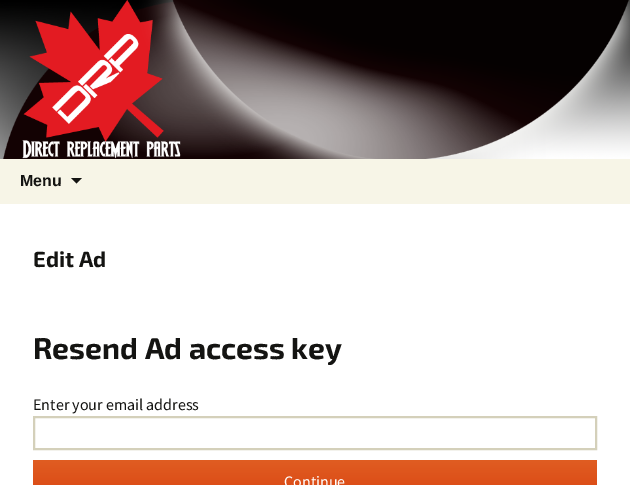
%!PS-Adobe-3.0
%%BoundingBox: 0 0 630 485
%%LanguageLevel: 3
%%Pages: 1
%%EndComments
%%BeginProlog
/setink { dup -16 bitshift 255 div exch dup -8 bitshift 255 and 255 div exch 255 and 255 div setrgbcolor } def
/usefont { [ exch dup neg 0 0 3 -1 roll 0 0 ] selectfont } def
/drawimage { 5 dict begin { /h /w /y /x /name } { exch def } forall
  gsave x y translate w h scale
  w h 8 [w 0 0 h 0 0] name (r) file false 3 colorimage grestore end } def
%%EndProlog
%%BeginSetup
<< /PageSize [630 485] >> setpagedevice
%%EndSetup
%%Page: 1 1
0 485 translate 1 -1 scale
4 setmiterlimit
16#FFFFFF setink
0 0 630 485 rectfill
(img1.raw) 0 0 630 159 drawimage
16#F7F5E7 setink
0 159 630 45 rectfill
/LiberationSans-Bold 16 usefont
16#141412 setink
20 186 moveto (Menu) show
71 178 moveto 76.5 183.5 lineto 82 178 lineto closepath fill
/Exo2-Bold 22 usefont
33 267 moveto (Edit Ad) show
/Exo2-Bold 30 usefont
33 359 moveto (Resend Ad access key) show
/SourceSansPro-Regular 16 usefont
33 410 moveto (Enter your email address) show
16#D4D0BA setink
2 setlinewidth
34 417 562 32 rectstroke
gsave 35 460 moveto 595 460 lineto 596 460 597 461 597 462 curveto 597 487 lineto 33 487 lineto 33 462 lineto 33 461 34 460 35 460 curveto closepath clip newpath
<< /ShadingType 2 /ColorSpace /DeviceRGB /Coords [315 460 315 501] /Extend [true true] /Function << /FunctionType 2 /Domain [0 1] /C0 [0.878 0.365 0.133] /C1 [0.851 0.267 0.071] /N 1 >> >> shfill grestore
16#FFFFFF setink
284 487 moveto (Continue) show
showpage
%%EOF
